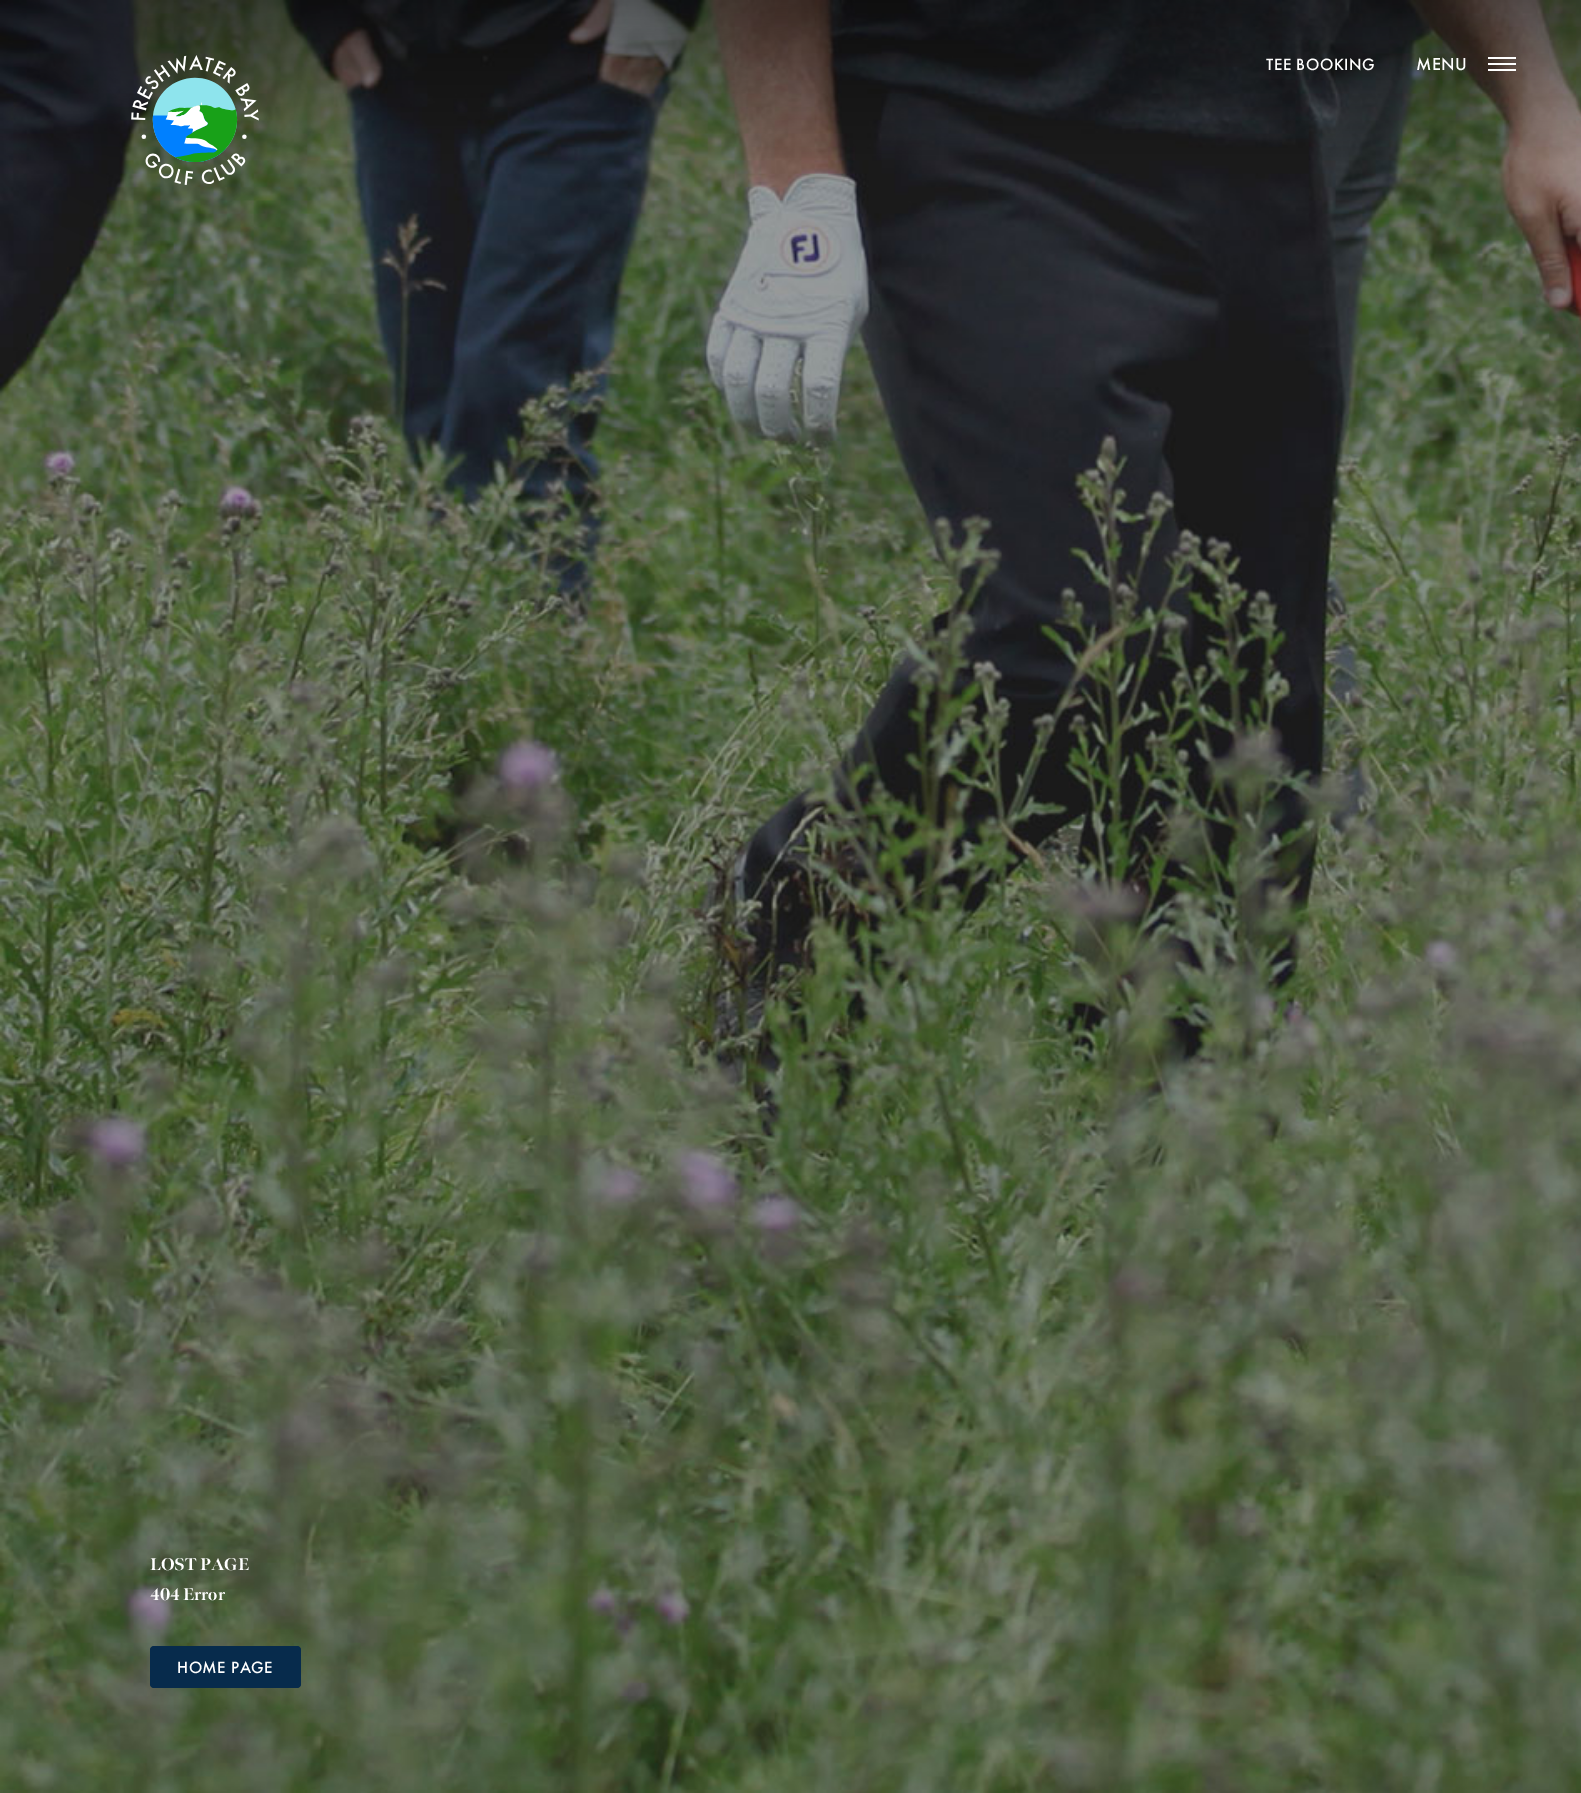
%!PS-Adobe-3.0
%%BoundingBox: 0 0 1581 1793
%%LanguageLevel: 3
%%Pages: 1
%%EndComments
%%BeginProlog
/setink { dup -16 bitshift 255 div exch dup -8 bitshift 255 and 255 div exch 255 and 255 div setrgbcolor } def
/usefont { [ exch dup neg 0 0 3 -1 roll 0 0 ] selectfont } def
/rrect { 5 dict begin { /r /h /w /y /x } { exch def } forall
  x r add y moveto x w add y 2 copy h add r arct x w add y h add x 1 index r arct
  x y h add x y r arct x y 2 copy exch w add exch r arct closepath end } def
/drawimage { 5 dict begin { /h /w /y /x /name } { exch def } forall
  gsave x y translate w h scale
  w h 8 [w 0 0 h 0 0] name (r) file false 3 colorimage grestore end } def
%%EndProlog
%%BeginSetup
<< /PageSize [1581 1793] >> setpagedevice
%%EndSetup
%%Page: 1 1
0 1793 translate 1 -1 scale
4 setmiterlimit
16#FFFFFF setink
0 0 1581 1793 rectfill
(img2.raw) 0 0 1581 1793 drawimage
(img1.raw) 131 55 128 130 drawimage
/FuturaPT-Medium 17 usefont
1266 70 moveto 0.5 0 (TEE BOOKING) ashow
/FuturaPT-Medium 18 usefont
1416 70 moveto 0.5 0 (MENU) ashow
[
    [1488 63 28 2 16#FFFFFF]
    [1488 57 28 2 16#FFFFFF]
    [1488 69 28 2 16#FFFFFF]
] { aload pop setink rectfill } forall
/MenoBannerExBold-ExtraBold 17 usefont
150 1570 moveto (LOST PAGE) show
150 1600 moveto (404 Error) show
16#072B4C setink
150 1646 151 42 4 rrect fill
/FuturaPT-Medium 17 usefont
16#FFFFFF setink
177 1673 moveto 0.5 0 (HOME PAGE) ashow
showpage
%%EOF
